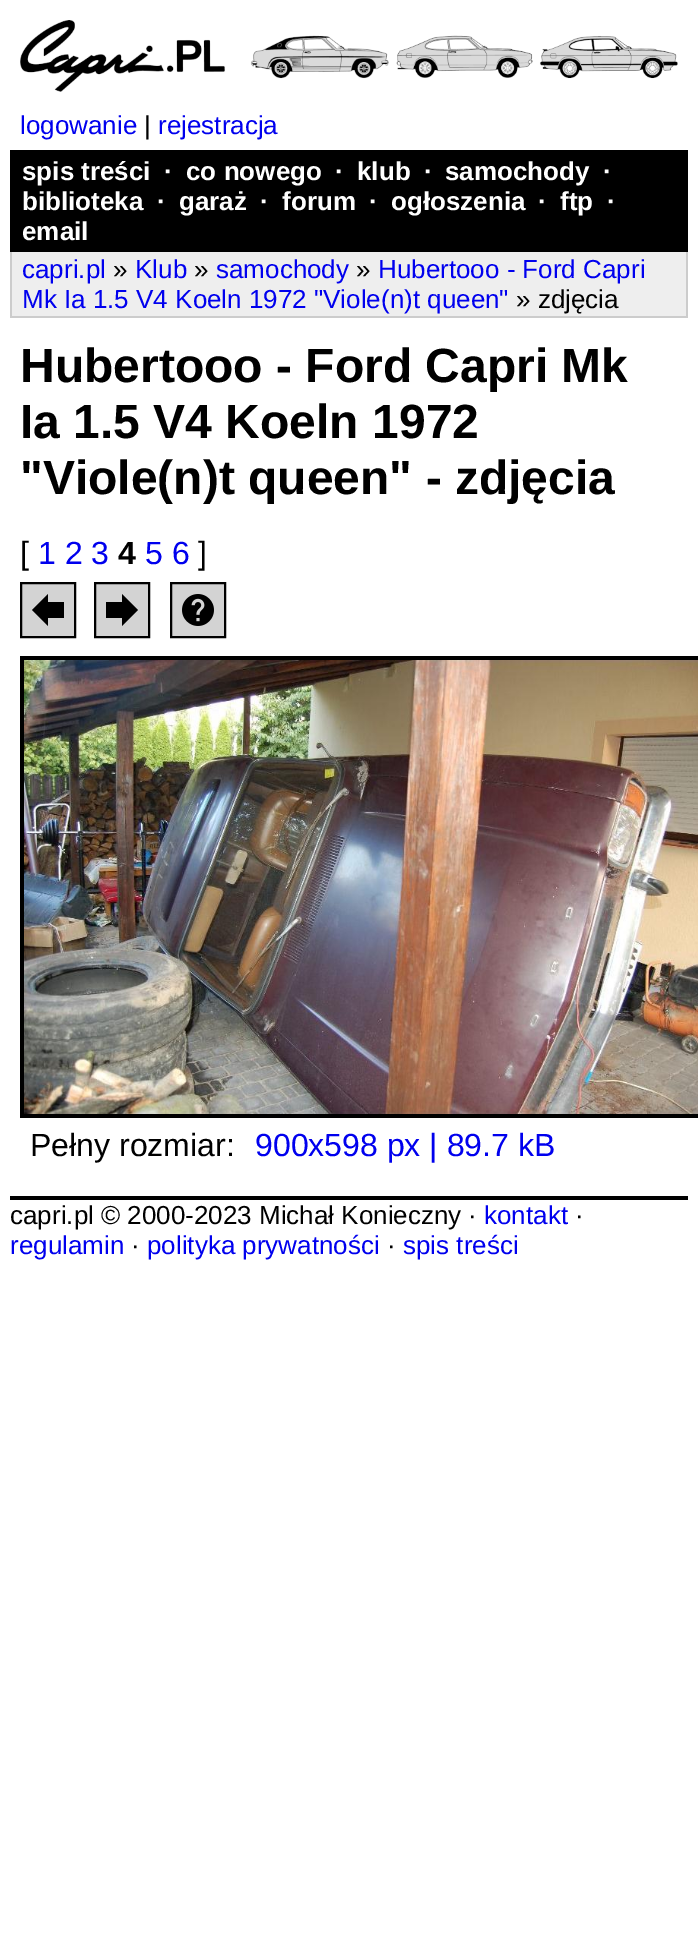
%!PS-Adobe-3.0
%%BoundingBox: 0 0 698 1941
%%LanguageLevel: 3
%%Pages: 1
%%EndComments
%%BeginProlog
/setink { dup -16 bitshift 255 div exch dup -8 bitshift 255 and 255 div exch 255 and 255 div setrgbcolor } def
/usefont { [ exch dup neg 0 0 3 -1 roll 0 0 ] selectfont } def
/drawimage { 5 dict begin { /h /w /y /x /name } { exch def } forall
  gsave x y translate w h scale
  w h 8 [w 0 0 h 0 0] name (r) file false 3 colorimage grestore end } def
%%EndProlog
%%BeginSetup
<< /PageSize [698 1941] >> setpagedevice
%%EndSetup
%%Page: 1 1
0 1941 translate 1 -1 scale
4 setmiterlimit
16#FFFFFF setink
0 0 698 1941 rectfill
(img1.raw) 20 20 658 72 drawimage
/LiberationSans-Regular 26 usefont
16#0000EE setink
20 134 moveto (logowanie) show
16#000000 setink
144 134 moveto (|) show
16#0000EE setink
158 134 moveto (rejestracja) show
16#000000 setink
10 150 678 102 rectfill
/LiberationSans-Bold 26 usefont
16#FFFFFF setink
[
    [(spis treści) 22 180]
    [(·) 164 180]
    [(co nowego) 186 180]
    [(·) 335 180]
    [(klub) 357 180]
    [(·) 424 180]
    [(samochody) 445 180]
    [(·) 603 180]
    [(biblioteka) 22 210]
    [(·) 157 210]
    [(garaż) 179 210]
    [(·) 260 210]
    [(forum) 282 210]
    [(·) 369 210]
    [(ogłoszenia) 391 210]
    [(·) 538 210]
    [(ftp) 560 210]
    [(·) 607 210]
    [(email) 22 240]
] { aload pop moveto show } forall
[
    [12 252 674 64 16#EEEEEE]
    [686 252 2 66 16#CCCCCC]
    [10 316 678 2 16#CCCCCC]
    [10 252 2 66 16#CCCCCC]
] { aload pop setink rectfill } forall
/LiberationSans-Regular 26 usefont
16#0000EE setink
22 278 moveto (capri.pl) show
16#000000 setink
113 278 moveto (») show
16#0000EE setink
135 278 moveto (Klub) show
16#000000 setink
194 278 moveto (») show
16#0000EE setink
216 278 moveto (samochody) show
16#000000 setink
356 278 moveto (») show
16#0000EE setink
378 278 moveto (Hubertooo - Ford Capri) show
22 308 moveto (Mk Ia 1.5 V4 Koeln 1972 "Viole\(n\)t queen") show
16#000000 setink
516 308 moveto (» zdjęcia) show
/LiberationSans-Bold 48 usefont
[
    [(Hubertooo - Ford Capri Mk) 20 382]
    [(Ia 1.5 V4 Koeln 1972) 20 438]
    [("Viole\(n\)t queen" - zdjęcia) 20 494]
] { aload pop moveto show } forall
/LiberationSans-Regular 32 usefont
20 564 moveto ([) show
16#0000EE setink
38 564 moveto (1 2 3) show
/LiberationSans-Bold 32 usefont
16#000000 setink
118 564 moveto (4) show
/LiberationSans-Regular 32 usefont
16#0000EE setink
145 564 moveto (5 6) show
16#000000 setink
198 564 moveto (]) show
16#D3D3D3 setink
21 583 moveto 75 583 lineto 75 637 lineto 21 637 lineto closepath gsave fill grestore
16#000000 setink
2 setlinewidth
stroke
48 594 moveto 32 610 lineto 48 626 lineto 48 618 lineto 64 618 lineto 64 602 lineto 48 602 lineto closepath fill
16#D3D3D3 setink
95 583 moveto 149 583 lineto 149 637 lineto 95 637 lineto closepath gsave fill grestore
16#000000 setink
stroke
122 602 moveto 122 594 lineto 138 610 lineto 122 626 lineto 122 618 lineto 106 618 lineto 106 602 lineto closepath fill
16#D3D3D3 setink
171 583 moveto 225 583 lineto 225 637 lineto 171 637 lineto closepath gsave fill grestore
16#000000 setink
stroke
(img2.raw) 182 594 32 32 drawimage
20 656 678 462 rectfill
(img3.raw) 24 660 674 454 drawimage
30 1156 moveto (Pełny rozmiar:) show
16#0000EE setink
255 1156 moveto (900x598 px | 89.7 kB) show
16#000000 setink
10 1196 678 4 rectfill
/LiberationSans-Regular 26 usefont
10 1224 moveto (capri.pl © 2000-2023 Michał Konieczny ·) show
16#0000EE setink
484 1224 moveto (kontakt) show
16#000000 setink
575 1224 moveto (·) show
16#0000EE setink
10 1254 moveto (regulamin) show
16#000000 setink
131 1254 moveto (·) show
16#0000EE setink
147 1254 moveto (polityka prywatności) show
16#000000 setink
387 1254 moveto (·) show
16#0000EE setink
403 1254 moveto (spis treści) show
showpage
%%EOF
